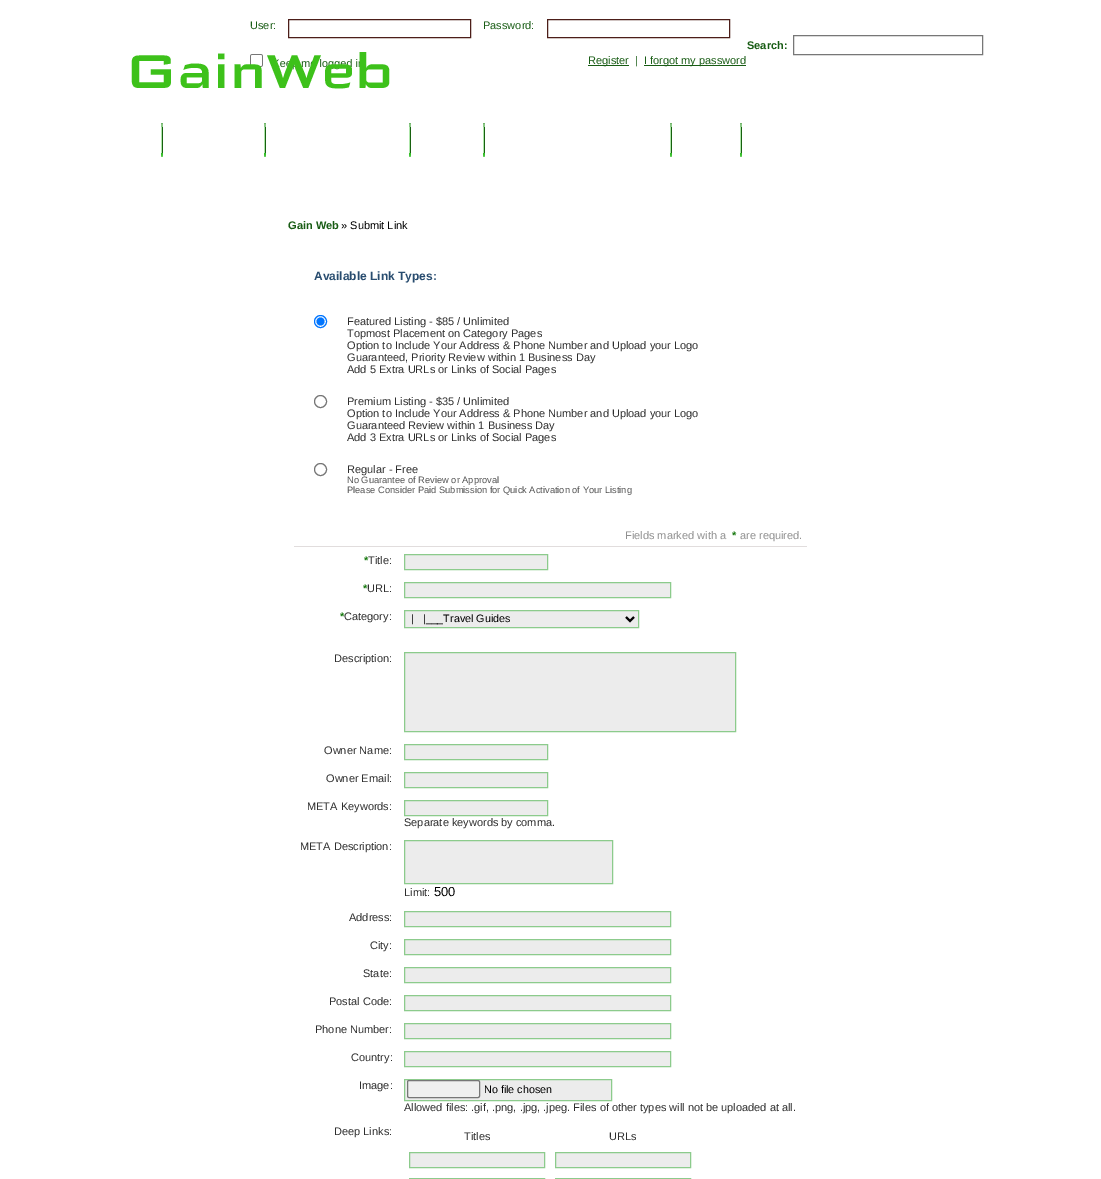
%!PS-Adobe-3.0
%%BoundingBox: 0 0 1101 1179
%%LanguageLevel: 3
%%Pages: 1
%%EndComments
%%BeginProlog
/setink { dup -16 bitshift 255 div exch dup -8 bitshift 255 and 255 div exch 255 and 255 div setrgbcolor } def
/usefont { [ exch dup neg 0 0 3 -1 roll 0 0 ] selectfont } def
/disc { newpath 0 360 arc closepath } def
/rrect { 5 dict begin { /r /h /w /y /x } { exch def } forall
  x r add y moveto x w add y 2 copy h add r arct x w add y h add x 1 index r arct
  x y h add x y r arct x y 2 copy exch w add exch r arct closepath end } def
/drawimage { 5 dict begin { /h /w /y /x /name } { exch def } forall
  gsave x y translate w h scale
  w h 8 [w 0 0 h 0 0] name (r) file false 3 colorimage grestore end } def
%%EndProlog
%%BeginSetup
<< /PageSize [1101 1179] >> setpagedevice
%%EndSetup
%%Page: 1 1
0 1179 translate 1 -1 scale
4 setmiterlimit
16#FFFFFF setink
0 0 1101 1179 rectfill
/LiberationSans-Regular 11 usefont
16#185C14 setink
250 29 moveto (User:) show
16#4C1E19 setink
288.5 19.5 182 18 rectstroke
16#185C14 setink
483 29 moveto (Password:) show
16#4C1E19 setink
547.5 19.5 182 18 rectstroke
16#767676 setink
250.5 54.5 12 12 1.5 rrect stroke
16#185C14 setink
[
    [(e) 280 67]
    [(me lo) 301 67]
    [(i) 356 67]
] { aload pop moveto show } forall
588 65 41 1 rectfill
588 64 moveto (Register) show
635 64 moveto (|) show
644 65 102 1 rectfill
644 64 moveto (I forgot my password) show
/LiberationSans-Bold 11 usefont
747 49 moveto (Search:) show
16#777777 setink
793.5 35.5 189 19 rectstroke
(img1.raw) 131 52 259 37 drawimage
(img2.raw) 161 123 2 34 drawimage
(img2.raw) 264 123 2 34 drawimage
(img2.raw) 409 123 2 34 drawimage
(img2.raw) 483 123 2 34 drawimage
(img2.raw) 670 123 2 34 drawimage
(img2.raw) 740 123 2 34 drawimage
16#185C14 setink
288 229 moveto (Gain Web) show
/LiberationSans-Regular 11 usefont
16#000000 setink
341 229 moveto (» Submit Link) show
/LiberationSans-Bold 12 usefont
16#284C6F setink
314 280 moveto (Available Link Types:) show
16#0075FF setink
320.5 321.5 6 disc stroke
320.5 321.5 4 disc fill
/LiberationSans-Regular 11 usefont
16#2E2E2E setink
[
    [(Featured Listing - $85 / Unlimited) 347 325]
    [(Topmost Placement on Category Pages) 347 337]
    [(Option to Include Your Address & Phone Number and Upload your Logo) 347 349]
    [(Guaranteed, Priority Review within 1 Business Day) 347 361]
    [(Add 5 Extra URLs or Links of Social Pages) 347 373]
] { aload pop moveto show } forall
16#767676 setink
320.5 401.5 6 disc stroke
16#2E2E2E setink
[
    [(Premium Listing - $35 / Unlimited) 347 405]
    [(Option to Include Your Address & Phone Number and Upload your Logo) 347 417]
    [(Guaranteed Review within 1 Business Day) 347 429]
    [(Add 3 Extra URLs or Links of Social Pages) 347 441]
] { aload pop moveto show } forall
16#767676 setink
320.5 469.5 6 disc stroke
16#2E2E2E setink
347 473 moveto (Regular - Free) show
/LiberationSans-Regular 9.3 usefont
16#555555 setink
347 483 moveto (No Guarantee of Review or Approval) show
347 493 moveto (Please Consider Paid Submission for Quick Activation of Your Listing) show
16#E1DDDD setink
294 546 513 1 rectfill
/LiberationSans-Regular 11 usefont
16#909090 setink
625 539 moveto (Fields marked with a) show
/LiberationSans-Bold 11 usefont
16#187910 setink
732 539 moveto (*) show
/LiberationSans-Regular 11 usefont
16#909090 setink
740 539 moveto (are required.) show
/LiberationSans-Bold 11 usefont
16#187910 setink
364 564 moveto (*) show
/LiberationSans-Regular 11 usefont
16#2E2E2E setink
368 564 moveto (Title:) show
16#ECECEC setink
404.5 554.5 moveto 547.5 554.5 lineto 547.5 569.5 lineto 404.5 569.5 lineto closepath gsave fill grestore
16#8CCB8C setink
stroke
/LiberationSans-Bold 11 usefont
16#187910 setink
363 592 moveto (*) show
/LiberationSans-Regular 11 usefont
16#2E2E2E setink
367 592 moveto (URL:) show
16#ECECEC setink
404.5 582.5 moveto 670.5 582.5 lineto 670.5 597.5 lineto 404.5 597.5 lineto closepath gsave fill grestore
16#8CCB8C setink
stroke
/LiberationSans-Bold 11 usefont
16#187910 setink
340 620 moveto (*) show
/LiberationSans-Regular 11 usefont
16#2E2E2E setink
344 620 moveto (Category:) show
16#ECECEC setink
404.5 610.5 moveto 638.5 610.5 lineto 638.5 627.5 lineto 404.5 627.5 lineto closepath gsave fill grestore
16#8CCB8C setink
stroke
16#000000 setink
2 setlinewidth
626 617 moveto 630 621 lineto 634 617 lineto stroke
/LiberationSans-Regular 10.75 usefont
411 622 moveto (|   |___Travel Guides) show
/LiberationSans-Regular 11 usefont
16#2E2E2E setink
334 662 moveto (Description:) show
16#ECECEC setink
404.5 652.5 moveto 735.5 652.5 lineto 735.5 731.5 lineto 404.5 731.5 lineto closepath gsave fill grestore
16#8CCB8C setink
1 setlinewidth
stroke
16#2E2E2E setink
324 754 moveto (Owner Name:) show
16#ECECEC setink
404.5 744.5 moveto 547.5 744.5 lineto 547.5 759.5 lineto 404.5 759.5 lineto closepath gsave fill grestore
16#8CCB8C setink
stroke
16#2E2E2E setink
326 782 moveto (Owner Email:) show
16#ECECEC setink
404.5 772.5 moveto 547.5 772.5 lineto 547.5 787.5 lineto 404.5 787.5 lineto closepath gsave fill grestore
16#8CCB8C setink
stroke
16#2E2E2E setink
307 810 moveto (META Keywords:) show
16#ECECEC setink
404.5 800.5 moveto 547.5 800.5 lineto 547.5 815.5 lineto 404.5 815.5 lineto closepath gsave fill grestore
16#8CCB8C setink
stroke
16#2E2E2E setink
404 826 moveto (Separate keywords by comma.) show
300 850 moveto (META Description:) show
16#ECECEC setink
404.5 840.5 moveto 612.5 840.5 lineto 612.5 883.5 lineto 404.5 883.5 lineto closepath gsave fill grestore
16#8CCB8C setink
stroke
16#2E2E2E setink
404 896 moveto (Limit:) show
/LiberationSans-Regular 13 usefont
16#000000 setink
434 896 moveto (500) show
/LiberationSans-Regular 11 usefont
16#2E2E2E setink
349 921 moveto (Address:) show
16#ECECEC setink
404.5 911.5 moveto 670.5 911.5 lineto 670.5 926.5 lineto 404.5 926.5 lineto closepath gsave fill grestore
16#8CCB8C setink
stroke
16#2E2E2E setink
370 949 moveto (City:) show
16#ECECEC setink
404.5 939.5 moveto 670.5 939.5 lineto 670.5 954.5 lineto 404.5 954.5 lineto closepath gsave fill grestore
16#8CCB8C setink
stroke
16#2E2E2E setink
363 977 moveto (State:) show
16#ECECEC setink
404.5 967.5 moveto 670.5 967.5 lineto 670.5 982.5 lineto 404.5 982.5 lineto closepath gsave fill grestore
16#8CCB8C setink
stroke
16#2E2E2E setink
329 1005 moveto (Postal Code:) show
16#ECECEC setink
404.5 995.5 moveto 670.5 995.5 lineto 670.5 1010.5 lineto 404.5 1010.5 lineto closepath gsave fill grestore
16#8CCB8C setink
stroke
16#2E2E2E setink
315 1033 moveto (Phone Number:) show
16#ECECEC setink
404.5 1023.5 moveto 670.5 1023.5 lineto 670.5 1038.5 lineto 404.5 1038.5 lineto closepath gsave fill grestore
16#8CCB8C setink
stroke
16#2E2E2E setink
351 1061 moveto (Country:) show
16#ECECEC setink
404.5 1051.5 moveto 670.5 1051.5 lineto 670.5 1066.5 lineto 404.5 1066.5 lineto closepath gsave fill grestore
16#8CCB8C setink
stroke
16#2E2E2E setink
359 1089 moveto (Image:) show
16#ECECEC setink
404.5 1079.5 moveto 611.5 1079.5 lineto 611.5 1100.5 lineto 404.5 1100.5 lineto closepath gsave fill grestore
16#8CCB8C setink
stroke
16#EFEFEF setink
407.5 1080.5 72 17 1.5 rrect gsave fill grestore
16#767676 setink
stroke
/LiberationSans-Regular 10.75 usefont
16#000000 setink
484 1093 moveto (No file chosen) show
/LiberationSans-Regular 11 usefont
16#2E2E2E setink
[
    [(Allowed files: .gif, .png, .jpg, .jpeg. Files of other types will not be uploaded at all.) 404 1111]
    [(Deep Links:) 334 1135]
    [(Titles) 464 1140]
    [(URLs) 609 1140]
] { aload pop moveto show } forall
16#ECECEC setink
409.5 1152.5 moveto 544.5 1152.5 lineto 544.5 1167.5 lineto 409.5 1167.5 lineto closepath gsave fill grestore
16#8CCB8C setink
stroke
16#ECECEC setink
555.5 1152.5 moveto 690.5 1152.5 lineto 690.5 1167.5 lineto 555.5 1167.5 lineto closepath gsave fill grestore
16#8CCB8C setink
stroke
409.5 1178.5 135 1 rectstroke
555.5 1178.5 135 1 rectstroke
showpage
%%EOF
